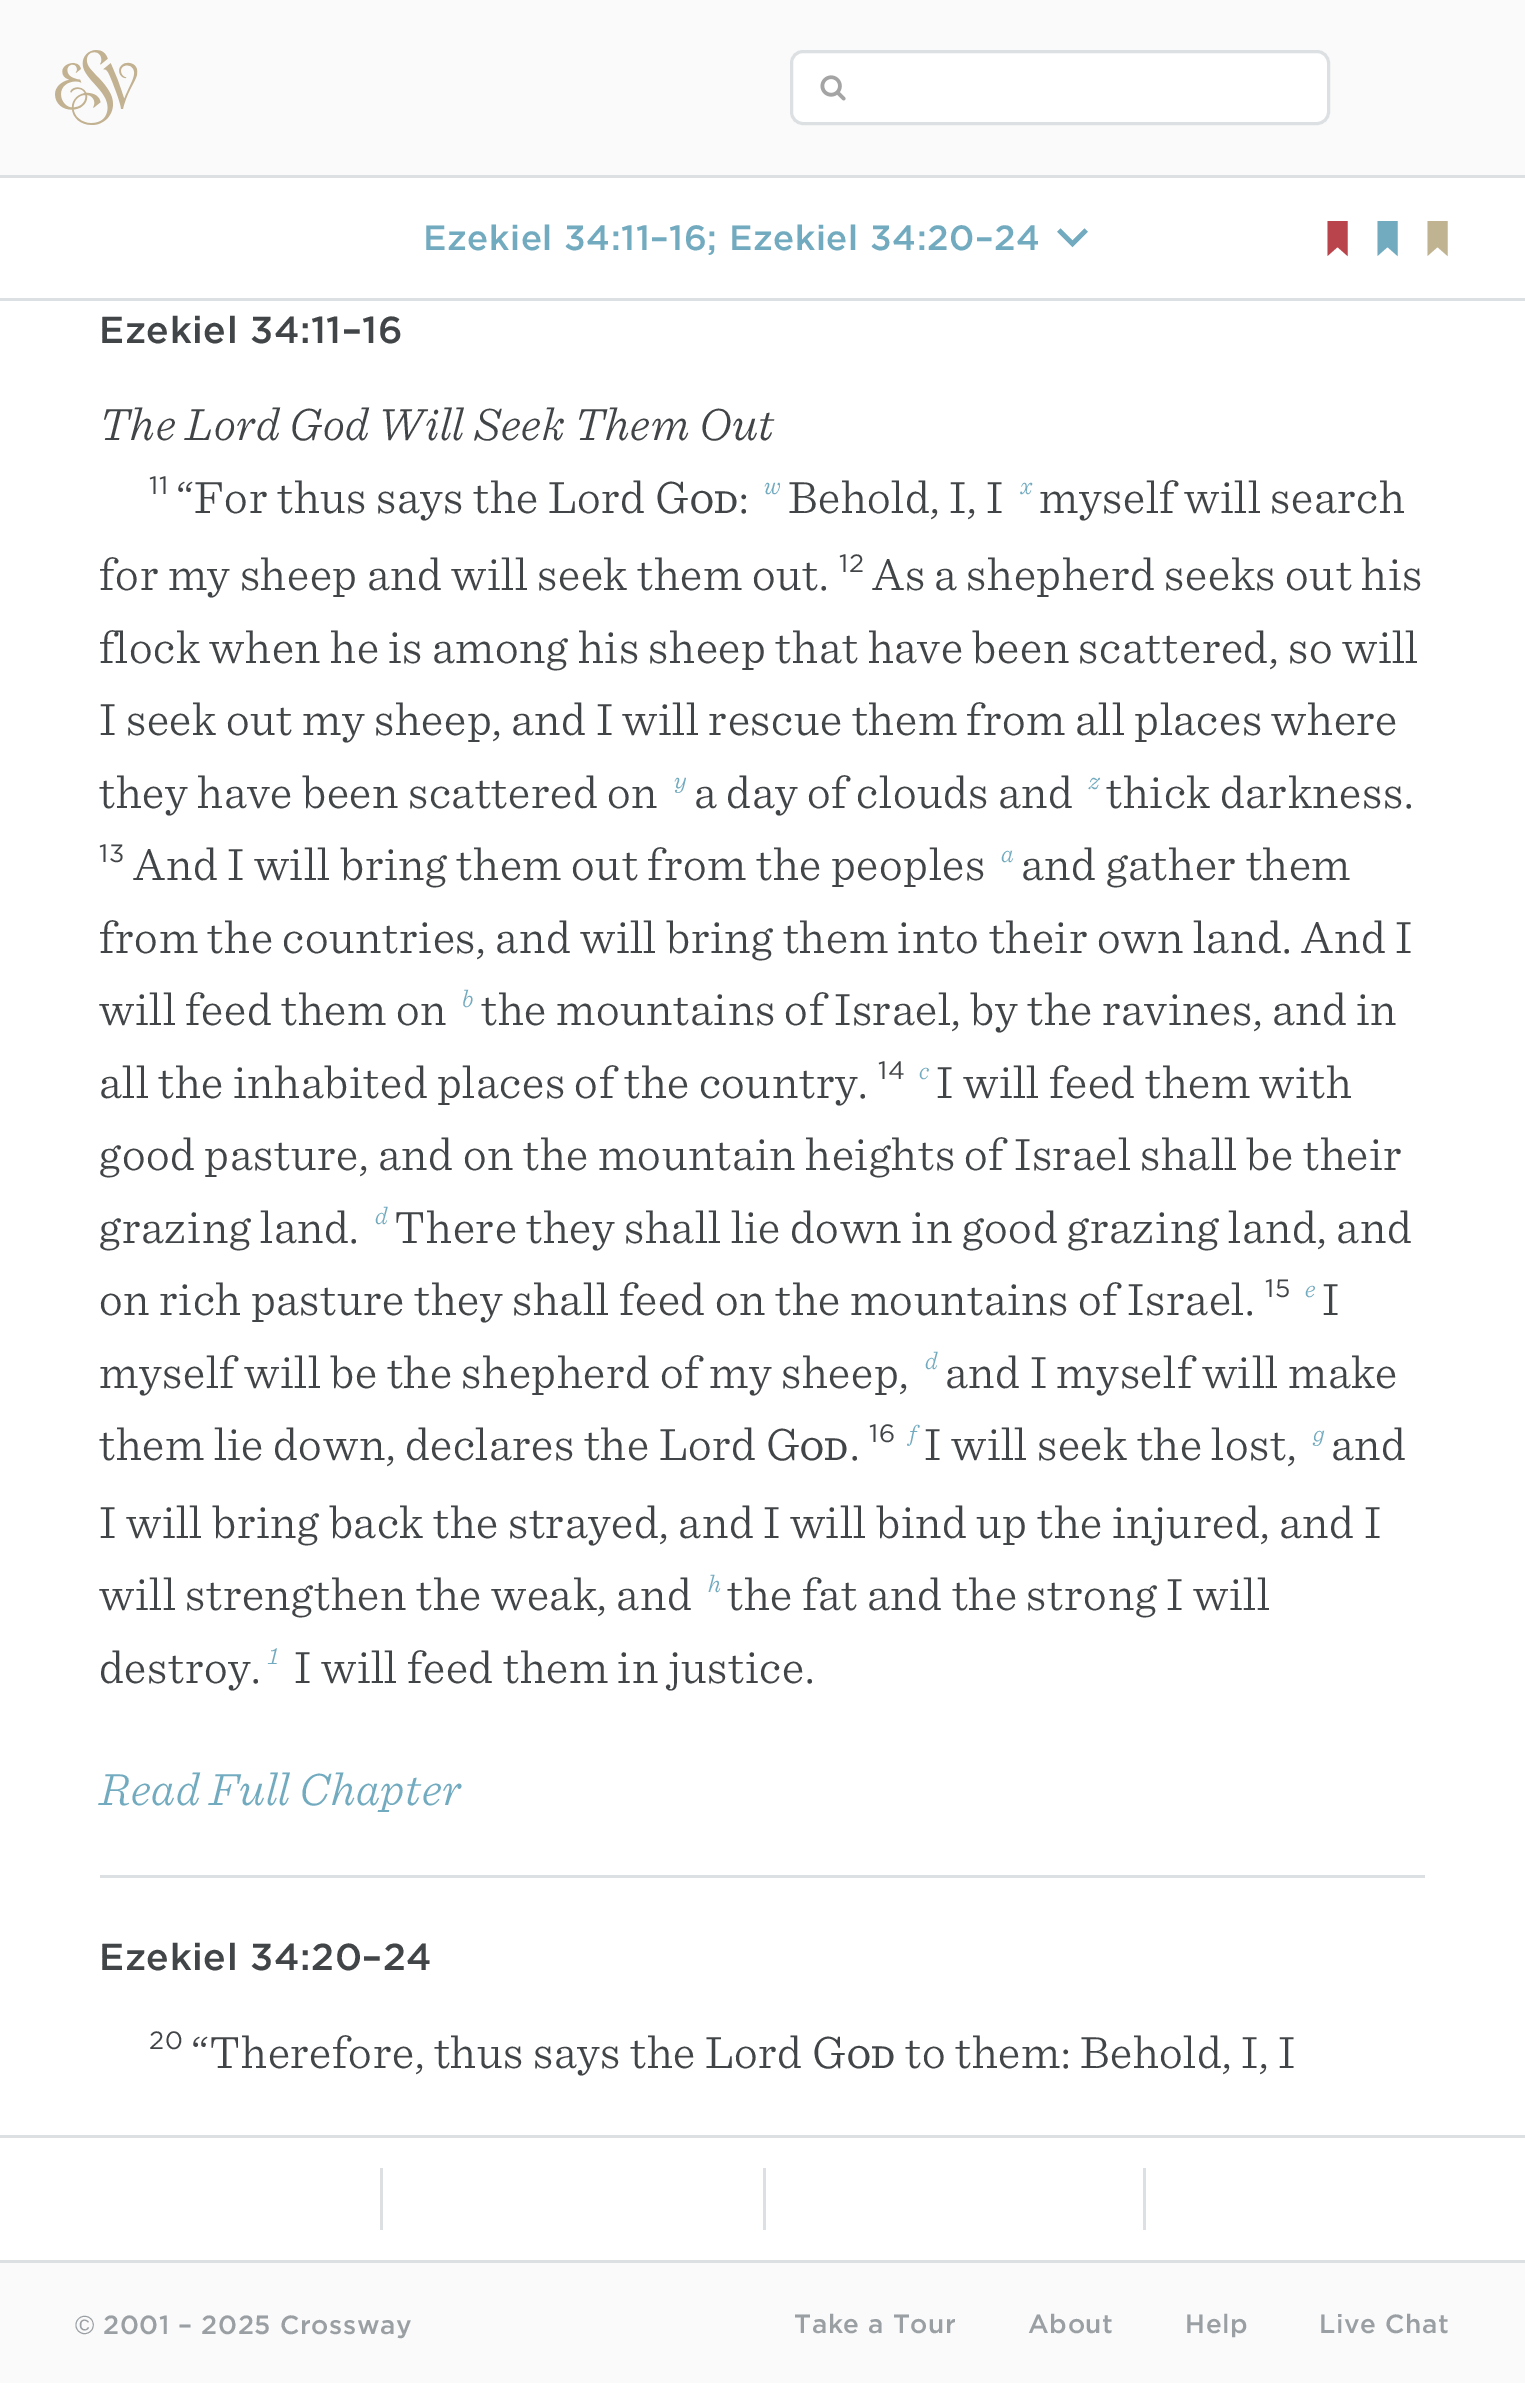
%!PS-Adobe-3.0
%%BoundingBox: 0 0 1525 2383
%%LanguageLevel: 3
%%Pages: 1
%%EndComments
%%BeginProlog
/setink { dup -16 bitshift 255 div exch dup -8 bitshift 255 and 255 div exch 255 and 255 div setrgbcolor } def
/usefont { [ exch dup neg 0 0 3 -1 roll 0 0 ] selectfont } def
/rrect { 5 dict begin { /r /h /w /y /x } { exch def } forall
  x r add y moveto x w add y 2 copy h add r arct x w add y h add x 1 index r arct
  x y h add x y r arct x y 2 copy exch w add exch r arct closepath end } def
/drawimage { 5 dict begin { /h /w /y /x /name } { exch def } forall
  gsave x y translate w h scale
  w h 8 [w 0 0 h 0 0] name (r) file false 3 colorimage grestore end } def
%%EndProlog
%%BeginSetup
<< /PageSize [1525 2383] >> setpagedevice
%%EndSetup
%%Page: 1 1
0 2383 translate 1 -1 scale
4 setmiterlimit
16#FAFAFA setink
0 0 1525 2383 rectfill
(img1.raw) 55 50 83 75 drawimage
16#FFFFFF setink
790 50 540 75 13 rrect fill
(img2.raw) 820 75 26 26 drawimage
16#DCE0E3 setink
3 setlinewidth
791.5 51.5 537 72 11.5 rrect stroke
[
    [0 178 1525 2082 16#FFFFFF]
    [0 175 1525 3 16#DCE0E3]
    [0 298 1525 3 16#DCE0E3]
] { aload pop setink rectfill } forall
/Gotham-Medium 35 usefont
16#72ABBF setink
423 250 moveto 0.62 0 (Ezekiel 34:11–16; Ezekiel 34:20–24) ashow
(img3.raw) 1057 228 31 20 drawimage
16#BA444B setink
1329 222.5 moveto 1329 252.5 lineto 1337.5 245 lineto 1346 252.5 lineto 1346 222.5 lineto closepath gsave eofill grestore
3.1 setlinewidth
stroke
16#72ABBF setink
1379 222.5 moveto 1379 252.5 lineto 1387.5 245 lineto 1396 252.5 lineto 1396 222.5 lineto closepath gsave eofill grestore
stroke
16#BFB391 setink
1429 222.5 moveto 1429 252.5 lineto 1437.5 245 lineto 1446 252.5 lineto 1446 222.5 lineto closepath gsave eofill grestore
stroke
/Gotham-Medium 37.5 usefont
16#424547 setink
99 343 moveto 0.62 0 (Ezekiel 34:11–16) ashow
/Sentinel-LightItalic 47.5 usefont
99 440 moveto 0.62 0 (The Lord God Will Seek Them Out) ashow
/Gotham-Regular 25 usefont
149 494 moveto 0.62 0 (11) ashow
/Sentinel-Light 47.5 usefont
176 513 moveto 0.62 0 (“For thus says the Lord G) ashow
/Sentinel-LightItalic 25 usefont
16#72ABBF setink
764 494 moveto 0.62 0 (w) ashow
/Sentinel-Light 47.5 usefont
16#424547 setink
788 513 moveto 0.62 0 (Behold, I, I) ashow
/Sentinel-LightItalic 25 usefont
16#72ABBF setink
1020 494 moveto 0.62 0 (x) ashow
/Sentinel-Light 47.5 usefont
16#424547 setink
1039 513 moveto 0.62 0 (myself will search) ashow
/Sentinel-Medium 33 usefont
690 513 moveto 0.62 0 (OD) ashow
/Sentinel-Light 47.5 usefont
739 513 moveto 0.62 0 (:) ashow
99 590 moveto 0.62 0 (for my sheep and will seek them out.) ashow
/Gotham-Regular 25 usefont
839 572 moveto 0.62 0 (12) ashow
/Sentinel-Light 47.5 usefont
872 590 moveto 0.62 0 (As a shepherd seeks out his) ashow
99 663 moveto 0.62 0 (flock when he is among his sheep that have been scattered, so will) ashow
99 735 moveto 0.62 0 (I seek out my sheep, and I will rescue them from all places where) ashow
99 808 moveto 0.62 0 (they have been scattered on) ashow
/Sentinel-LightItalic 25 usefont
16#72ABBF setink
674 789 moveto 0.62 0 (y) ashow
/Sentinel-Light 47.5 usefont
16#424547 setink
694 808 moveto 0.62 0 (a day of clouds and) ashow
/Sentinel-LightItalic 25 usefont
16#72ABBF setink
1089 789 moveto 0.62 0 (z) ashow
/Sentinel-Light 47.5 usefont
16#424547 setink
1106 808 moveto 0.62 0 (thick darkness.) ashow
/Gotham-Regular 25 usefont
99 862 moveto 0.62 0 (13) ashow
/Sentinel-Light 47.5 usefont
133 880 moveto 0.62 0 (And I will bring them out from the peoples) ashow
/Sentinel-LightItalic 25 usefont
16#72ABBF setink
1001 862 moveto 0.62 0 (a) ashow
/Sentinel-Light 47.5 usefont
16#424547 setink
1021 880 moveto 0.62 0 (and gather them) ashow
99 953 moveto 0.62 0 (from the countries, and will bring them into their own land. And I) ashow
99 1025 moveto 0.62 0 (will feed them on) ashow
/Sentinel-LightItalic 25 usefont
16#72ABBF setink
462 1007 moveto 0.62 0 (b) ashow
/Sentinel-Light 47.5 usefont
16#424547 setink
481 1025 moveto 0.62 0 (the mountains of Israel, by the ravines, and in) ashow
99 1098 moveto 0.62 0 (all the inhabited places of the country.) ashow
/Gotham-Regular 25 usefont
878 1079 moveto 0.62 0 (14) ashow
/Sentinel-LightItalic 25 usefont
16#72ABBF setink
919 1079 moveto 0.62 0 (c) ashow
/Sentinel-Light 47.5 usefont
16#424547 setink
936 1098 moveto 0.62 0 (I will feed them with) ashow
99 1170 moveto 0.62 0 (good pasture, and on the mountain heights of Israel shall be their) ashow
99 1243 moveto 0.62 0 (grazing land.) ashow
/Sentinel-LightItalic 25 usefont
16#72ABBF setink
375 1224 moveto 0.62 0 (d) ashow
/Sentinel-Light 47.5 usefont
16#424547 setink
394 1243 moveto 0.62 0 (There they shall lie down in good grazing land, and) ashow
99 1315 moveto 0.62 0 (on rich pasture they shall feed on the mountains of Israel.) ashow
/Gotham-Regular 25 usefont
1265 1297 moveto 0.62 0 (15) ashow
/Sentinel-LightItalic 25 usefont
16#72ABBF setink
1305 1297 moveto 0.62 0 (e) ashow
/Sentinel-Light 47.5 usefont
16#424547 setink
1322 1315 moveto 0.62 0 (I) ashow
99 1388 moveto 0.62 0 (myself will be the shepherd of my sheep,) ashow
/Sentinel-LightItalic 25 usefont
16#72ABBF setink
925 1369 moveto 0.62 0 (d) ashow
/Sentinel-Light 47.5 usefont
16#424547 setink
945 1388 moveto 0.62 0 (and I myself will make) ashow
99 1460 moveto 0.62 0 (them lie down, declares the Lord G) ashow
/Sentinel-Medium 33 usefont
800 1460 moveto 0.62 0 (OD) ashow
/Sentinel-Light 47.5 usefont
850 1460 moveto 0.62 0 (.) ashow
/Gotham-Regular 25 usefont
869 1442 moveto 0.62 0 (16) ashow
/Sentinel-LightItalic 25 usefont
16#72ABBF setink
909 1442 moveto 0.62 0 (f) ashow
/Sentinel-Light 47.5 usefont
16#424547 setink
924 1460 moveto 0.62 0 (I will seek the lost,) ashow
/Sentinel-LightItalic 25 usefont
16#72ABBF setink
1313 1442 moveto 0.62 0 (g) ashow
/Sentinel-Light 47.5 usefont
16#424547 setink
1331 1460 moveto 0.62 0 (and) ashow
99 1538 moveto 0.62 0 (I will bring back the strayed, and I will bind up the injured, and I) ashow
99 1610 moveto 0.62 0 (will strengthen the weak, and) ashow
/Sentinel-LightItalic 25 usefont
16#72ABBF setink
708 1592 moveto 0.62 0 (h) ashow
/Sentinel-Light 47.5 usefont
16#424547 setink
727 1610 moveto 0.62 0 (the fat and the strong I will) ashow
99 1683 moveto 0.62 0 (destroy.) ashow
/Sentinel-LightItalic 25 usefont
16#72ABBF setink
268 1664 moveto 0.62 0 (1) ashow
/Sentinel-Light 47.5 usefont
16#424547 setink
294 1683 moveto 0.62 0 (I will feed them in justice.) ashow
/Sentinel-LightItalic 47.5 usefont
16#72ABBF setink
99 1805 moveto 0.62 0 (Read Full Chapter) ashow
16#DCE0E3 setink
100 1875 1325 3 rectfill
/Gotham-Medium 37.5 usefont
16#424547 setink
99 1970 moveto 0.62 0 (Ezekiel 34:20–24) ashow
/Gotham-Regular 25 usefont
149 2049 moveto 0.62 0 (20) ashow
/Sentinel-Light 47.5 usefont
191 2068 moveto 0.62 0 (“Therefore, thus says the Lord G) ashow
/Sentinel-Medium 33 usefont
847 2068 moveto 0.62 0 (OD) ashow
/Sentinel-Light 47.5 usefont
905 2068 moveto 0.62 0 (to them: Behold, I, I) ashow
[
    [0 2135 1525 3 16#DCE0E3]
    [380 2168 3 62 16#DCE0E3]
    [763 2168 3 62 16#DCE0E3]
    [1143 2168 3 62 16#DCE0E3]
    [0 2260 1525 3 16#DCE0E3]
] { aload pop setink rectfill } forall
/LiberationSans-Regular 26.25 usefont
16#9A9FA3 setink
75 2334 moveto 0.62 0 (©) ashow
/Gotham-Medium 26.25 usefont
103 2334 moveto 0.62 0 (2001 – 2025 Crossway) ashow
794 2333 moveto 0.62 0 (Take a Tour) ashow
1028 2333 moveto 0.62 0 (About) ashow
1185 2333 moveto 0.62 0 (Help) ashow
1319 2333 moveto 0.62 0 (Live Chat) ashow
showpage
%%EOF
